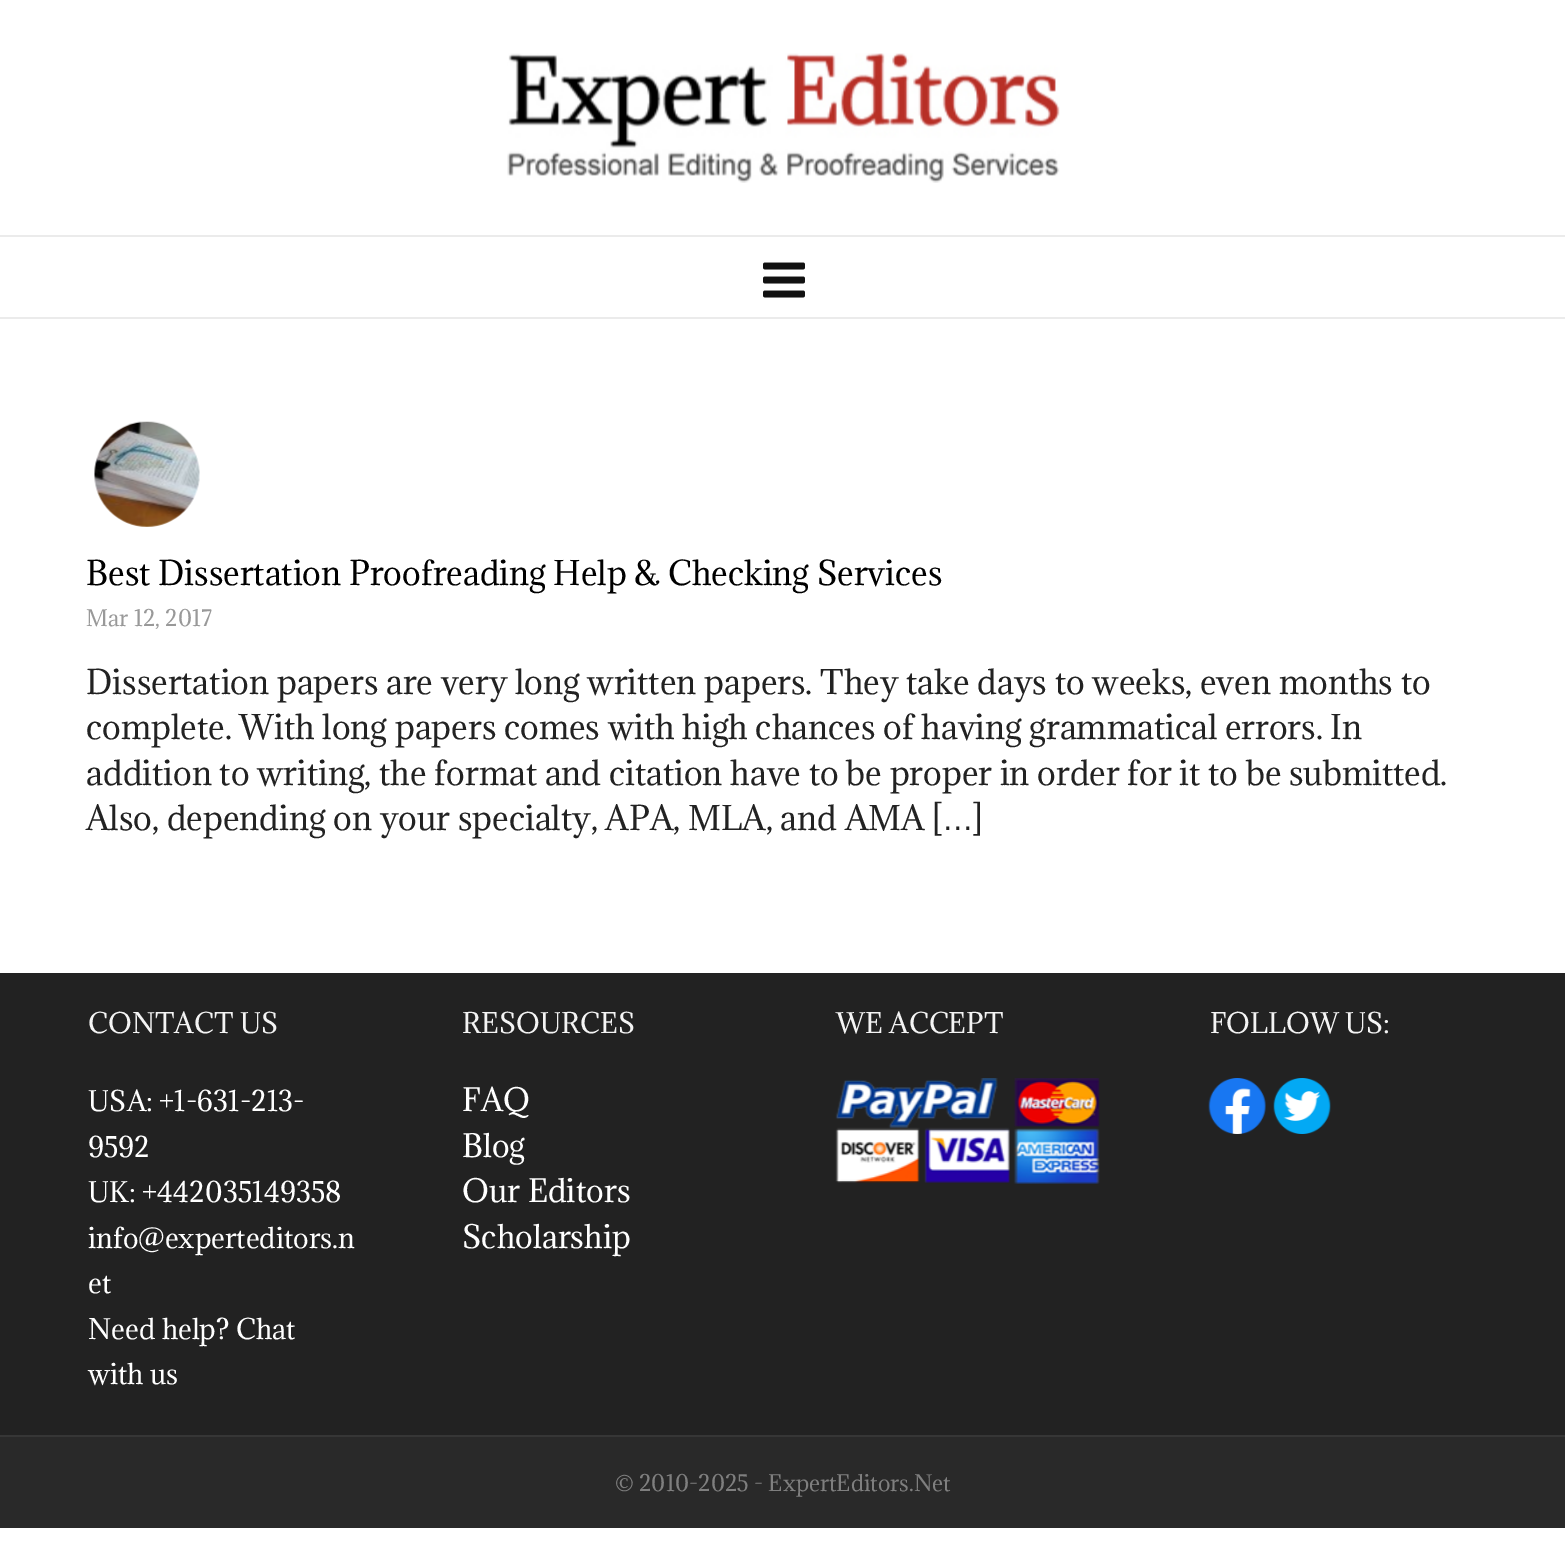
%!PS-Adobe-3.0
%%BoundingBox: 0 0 1565 1563
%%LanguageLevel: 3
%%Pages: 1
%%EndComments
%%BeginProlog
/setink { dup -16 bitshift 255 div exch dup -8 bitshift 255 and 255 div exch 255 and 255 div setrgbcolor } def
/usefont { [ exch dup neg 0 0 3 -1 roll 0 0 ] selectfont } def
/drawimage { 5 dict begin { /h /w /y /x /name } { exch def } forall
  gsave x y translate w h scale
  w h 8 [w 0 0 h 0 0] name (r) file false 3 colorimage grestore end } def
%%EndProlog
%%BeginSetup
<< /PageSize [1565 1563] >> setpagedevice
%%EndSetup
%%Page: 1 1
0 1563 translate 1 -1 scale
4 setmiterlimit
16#FFFFFF setink
0 0 1565 1563 rectfill
16#EBEBEB setink
0 317 1565 2 rectfill
(img1.raw) 507 53 553 130 drawimage
0 235 1565 2 rectfill
(img2.raw) 763 262 42 36 drawimage
(img3.raw) 94 421 106 106 drawimage
/Adamina-Regular 31.5 usefont
16#000000 setink
86 585 moveto (Best Dissertation Proofreading Help & Checking Services) show
/Adamina-Regular 21 usefont
16#999999 setink
86 626 moveto (Mar 12, 2017) show
/Adamina-Regular 31.5 usefont
16#222222 setink
[
    [(Dissertation papers are very long written papers. They take days to weeks, even months to) 86 694]
    [(complete. With long papers comes with high chances of having grammatical errors. In) 86 739]
    [(addition to writing, the format and citation have to be proper in order for it to be submitted.) 86 785]
    [(Also, depending on your specialty, APA, MLA, and AMA [) 86 830]
] { aload pop moveto show } forall
/LiberationSans-Regular 31.5 usefont
942 830 moveto (…) show
/Adamina-Regular 31.5 usefont
973 830 moveto (]) show
0 973 1565 462 rectfill
/Adamina-Regular 26.25 usefont
16#F4F4F4 setink
88 1033 moveto (CONTACT US) show
16#FFFFFF setink
[
    [(USA: +1-631-213-) 88 1111]
    [(9592) 88 1157]
    [(UK: +442035149358) 88 1202]
    [(info@experteditors.n) 88 1248]
    [(et) 88 1293]
    [(Need help? Chat) 88 1339]
    [(with us) 88 1384]
] { aload pop moveto show } forall
16#F4F4F4 setink
462 1033 moveto (RESOURCES) show
/Adamina-Regular 29.75 usefont
16#FFFFFF setink
[
    [(FAQ) 462 1111]
    [(Blog) 462 1157]
    [(Our Editors) 462 1202]
    [(Scholarship) 462 1248]
] { aload pop moveto show } forall
/Adamina-Regular 26.25 usefont
16#F4F4F4 setink
836 1033 moveto (WE ACCEPT) show
(img4.raw) 835 1078 265 106 drawimage
1210 1033 moveto (FOLLOW US:) show
(img5.raw) 1208 1078 58 56 drawimage
(img6.raw) 1273 1078 58 56 drawimage
16#292929 setink
0 1437 1565 91 rectfill
16#363636 setink
0 1435 1565 2 rectfill
/Adamina-Regular 21 usefont
16#7F7F7F setink
615 1491 moveto (© 2010-2025 - ExpertEditors.Net) show
showpage
%%EOF
